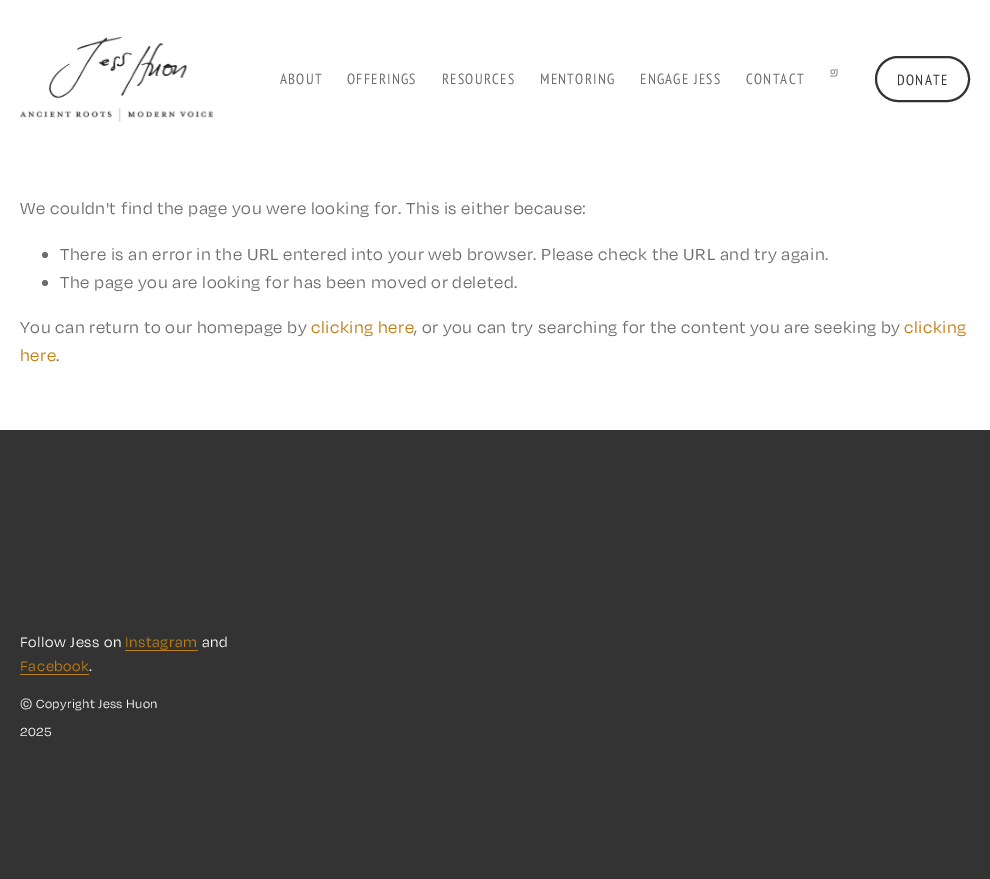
%!PS-Adobe-3.0
%%BoundingBox: 0 0 990 879
%%LanguageLevel: 3
%%Pages: 1
%%EndComments
%%BeginProlog
/setink { dup -16 bitshift 255 div exch dup -8 bitshift 255 and 255 div exch 255 and 255 div setrgbcolor } def
/usefont { [ exch dup neg 0 0 3 -1 roll 0 0 ] selectfont } def
/disc { newpath 0 360 arc closepath } def
/rrect { 5 dict begin { /r /h /w /y /x } { exch def } forall
  x r add y moveto x w add y 2 copy h add r arct x w add y h add x 1 index r arct
  x y h add x y r arct x y 2 copy exch w add exch r arct closepath end } def
/drawimage { 5 dict begin { /h /w /y /x /name } { exch def } forall
  gsave x y translate w h scale
  w h 8 [w 0 0 h 0 0] name (r) file false 3 colorimage grestore end } def
%%EndProlog
%%BeginSetup
<< /PageSize [990 879] >> setpagedevice
%%EndSetup
%%Page: 1 1
0 879 translate 1 -1 scale
4 setmiterlimit
16#FFFFFF setink
0 0 990 879 rectfill
(img1.raw) 20 37 193 85 drawimage
/PTSansNarrow-Regular 14.75 usefont
16#6E6E6E setink
280 84 moveto 1.25 0 (ABOUT) ashow
347 84 moveto 1.25 0 (OFFERINGS) ashow
442 84 moveto 1.25 0 (RESOURCES) ashow
540 84 moveto 1.25 0 (MENTORING) ashow
640 84 moveto 1.25 0 (ENGAGE JESS) ashow
746 84 moveto 1.25 0 (CONTACT) ashow
(img2.raw) 830 69 8 8 drawimage
16#333333 setink
2 setlinewidth
876 57 93 44 22 rrect stroke
897 85 moveto 1.25 0 (DONATE) ashow
/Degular-Regular 18.4 usefont
16#6E6E6E setink
20 214 moveto 0.55 0 (We couldn't find the page you were looking for. This is either because:) ashow
45 255 3 disc fill
60 260 moveto 0.55 0 (There is an error in the URL entered into your web browser. Please check the URL and try again.) ashow
45 283 3 disc fill
60 288 moveto 0.55 0 (The page you are looking for has been moved or deleted.) ashow
20 333 moveto 0.55 0 (You can return to our homepage by) ashow
16#BF7D12 setink
311 333 moveto 0.55 0 (clicking here) ashow
16#6E6E6E setink
414 333 moveto 0.55 0 (, or you can try searching for the content you are seeking by) ashow
16#BF7D12 setink
904 333 moveto 0.55 0 (clicking) ashow
20 361 moveto 0.55 0 (here) ashow
16#6E6E6E setink
56 361 moveto 0.55 0 (.) ashow
16#333333 setink
0 430 990 449 rectfill
/Degular-Regular 16 usefont
16#FFFFFF setink
20 647 moveto 0.55 0 (Follow Jess on) ashow
16#BF7D12 setink
125 647 moveto 0.55 0 (Instagram) ashow
125 650 73 1 rectfill
16#FFFFFF setink
202 647 moveto 0.55 0 (and) ashow
16#BF7D12 setink
20 671 moveto 0.55 0 (Facebook) ashow
20 674 69 1 rectfill
16#FFFFFF setink
89 671 moveto 0.55 0 (.) ashow
/Degular-Regular 13.6 usefont
20 708 moveto 0.4 0 (© Copyright Jess Huon) ashow
20 736 moveto 0.4 0 (2025) ashow
showpage
%%EOF
